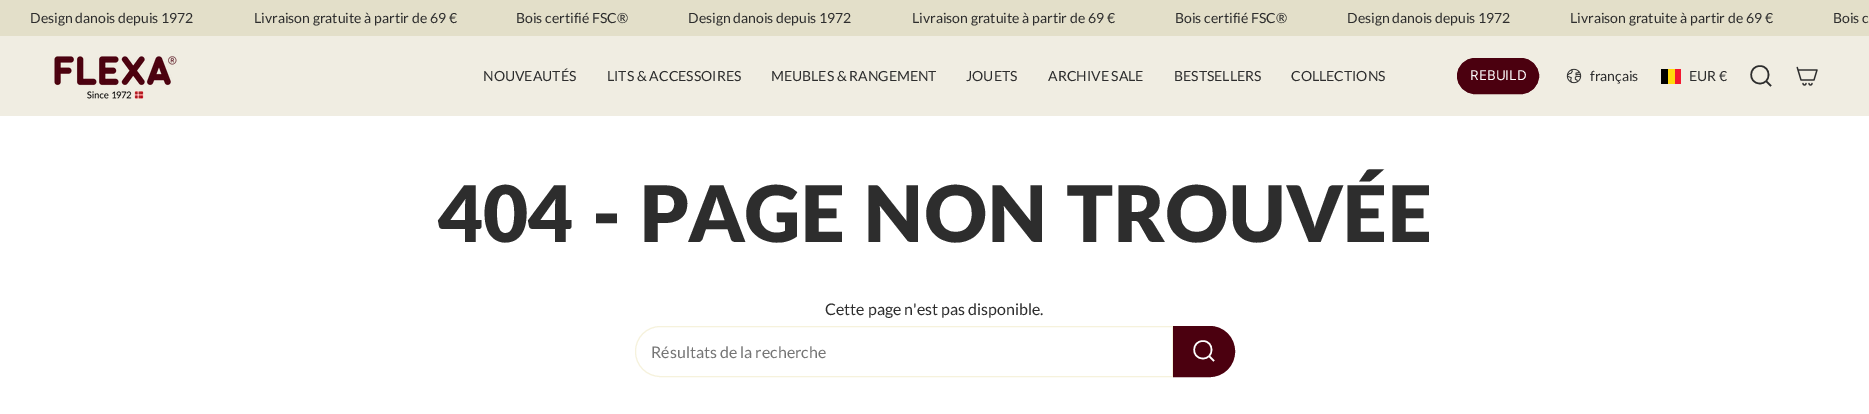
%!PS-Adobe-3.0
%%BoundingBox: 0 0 1869 414
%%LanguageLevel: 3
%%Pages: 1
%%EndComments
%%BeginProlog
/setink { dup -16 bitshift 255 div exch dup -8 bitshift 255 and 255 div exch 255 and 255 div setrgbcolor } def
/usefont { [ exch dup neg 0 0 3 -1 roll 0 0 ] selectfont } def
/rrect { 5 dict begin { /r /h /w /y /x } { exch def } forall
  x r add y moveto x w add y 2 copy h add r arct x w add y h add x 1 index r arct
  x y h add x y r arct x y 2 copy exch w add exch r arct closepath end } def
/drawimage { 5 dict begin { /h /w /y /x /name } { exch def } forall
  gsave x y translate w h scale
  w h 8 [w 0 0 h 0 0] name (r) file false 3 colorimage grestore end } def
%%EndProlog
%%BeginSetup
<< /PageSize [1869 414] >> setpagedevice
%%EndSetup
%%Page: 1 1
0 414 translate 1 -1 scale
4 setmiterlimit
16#FFFFFF setink
0 0 1869 414 rectfill
16#E3DFC9 setink
0 0 1869 36 rectfill
/Lato-Regular 14 usefont
16#2D2D2D setink
[
    [(Design danois depuis 1972) 30 23]
    [(Livraison gratuite à partir de 69 €) 254 23]
    [(Bois certifié FSC®) 516 23]
    [(Design danois depuis 1972) 688 23]
    [(Livraison gratuite à partir de 69 €) 912 23]
    [(Bois certifié FSC®) 1175 23]
    [(Design danois depuis 1972) 1347 23]
    [(Livraison gratuite à partir de 69 €) 1570 23]
    [(Bois c) 1833 23]
] { aload pop moveto show } forall
16#F0EDE2 setink
0 36 1869 80 rectfill
(img1.raw) 54 56 123 43 drawimage
16#2D2D2D setink
[
    [(NOUVEAUTÉS) 483 81]
    [(LITS & ACCESSOIRES) 607 81]
    [(MEUBLES & RANGEMENT) 771 81]
    [(JOUETS) 966 81]
    [(ARCHIVE SALE) 1048 81]
    [(BESTSELLERS) 1174 81]
    [(COLLECTIONS) 1291 81]
] { aload pop moveto show } forall
16#4B000F setink
1457.5 58.5 81 35 17.5 rrect gsave fill grestore
stroke
/Figtree-Regular 14 usefont
16#FFFFFF setink
1470 80 moveto (REBUILD) show
(img2.raw) 1566 68 16 16 drawimage
/Lato-Regular 14 usefont
16#2D2D2D setink
1590 81 moveto (français) show
[
    [1661 69 7 15 16#000000]
    [1668 69 7 15 16#FFD90C]
    [1675 69 6 15 16#F31830]
] { aload pop setink rectfill } forall
16#2D2D2D setink
1689 81 moveto (EUR €) show
1.5 setlinewidth
1760 66 moveto 1771.5 66 1771.5 84 1759.5 83.5 curveto 1748 83 1748.5 66 1760 66 curveto closepath 1766 81 moveto 1771 86 lineto stroke
(img3.raw) 1796 66 22 20 drawimage
/Lato-ExtraBold 78 usefont
438 242 moveto (404 - PAGE NON TROUVÉE) show
/Lato-Regular 16 usefont
825 315 moveto (Cette page n'est pas disponible.) show
16#F6F2DC setink
1 setlinewidth
660.5 326.5 moveto 1172.5 326.5 lineto 1172.5 376.5 lineto 660.5 376.5 lineto 646.5 376.5 635.5 365.5 635.5 351.5 curveto 635.5 337.5 646.5 326.5 660.5 326.5 curveto closepath stroke
16#757575 setink
651 358 moveto (Résultats de la recherche) show
16#4B000F setink
1173.5 326.5 moveto 1209.5 326.5 lineto 1223.5 326.5 1234.5 337.5 1234.5 351.5 curveto 1234.5 365.5 1223.5 376.5 1209.5 376.5 curveto 1173.5 376.5 lineto closepath gsave fill grestore
stroke
16#FFFFFF setink
1.5 setlinewidth
1203 341 moveto 1214.5 341 1214.5 359 1202.5 358.5 curveto 1191 358 1191.5 341 1203 341 curveto closepath 1209 356 moveto 1214 361 lineto stroke
showpage
%%EOF
